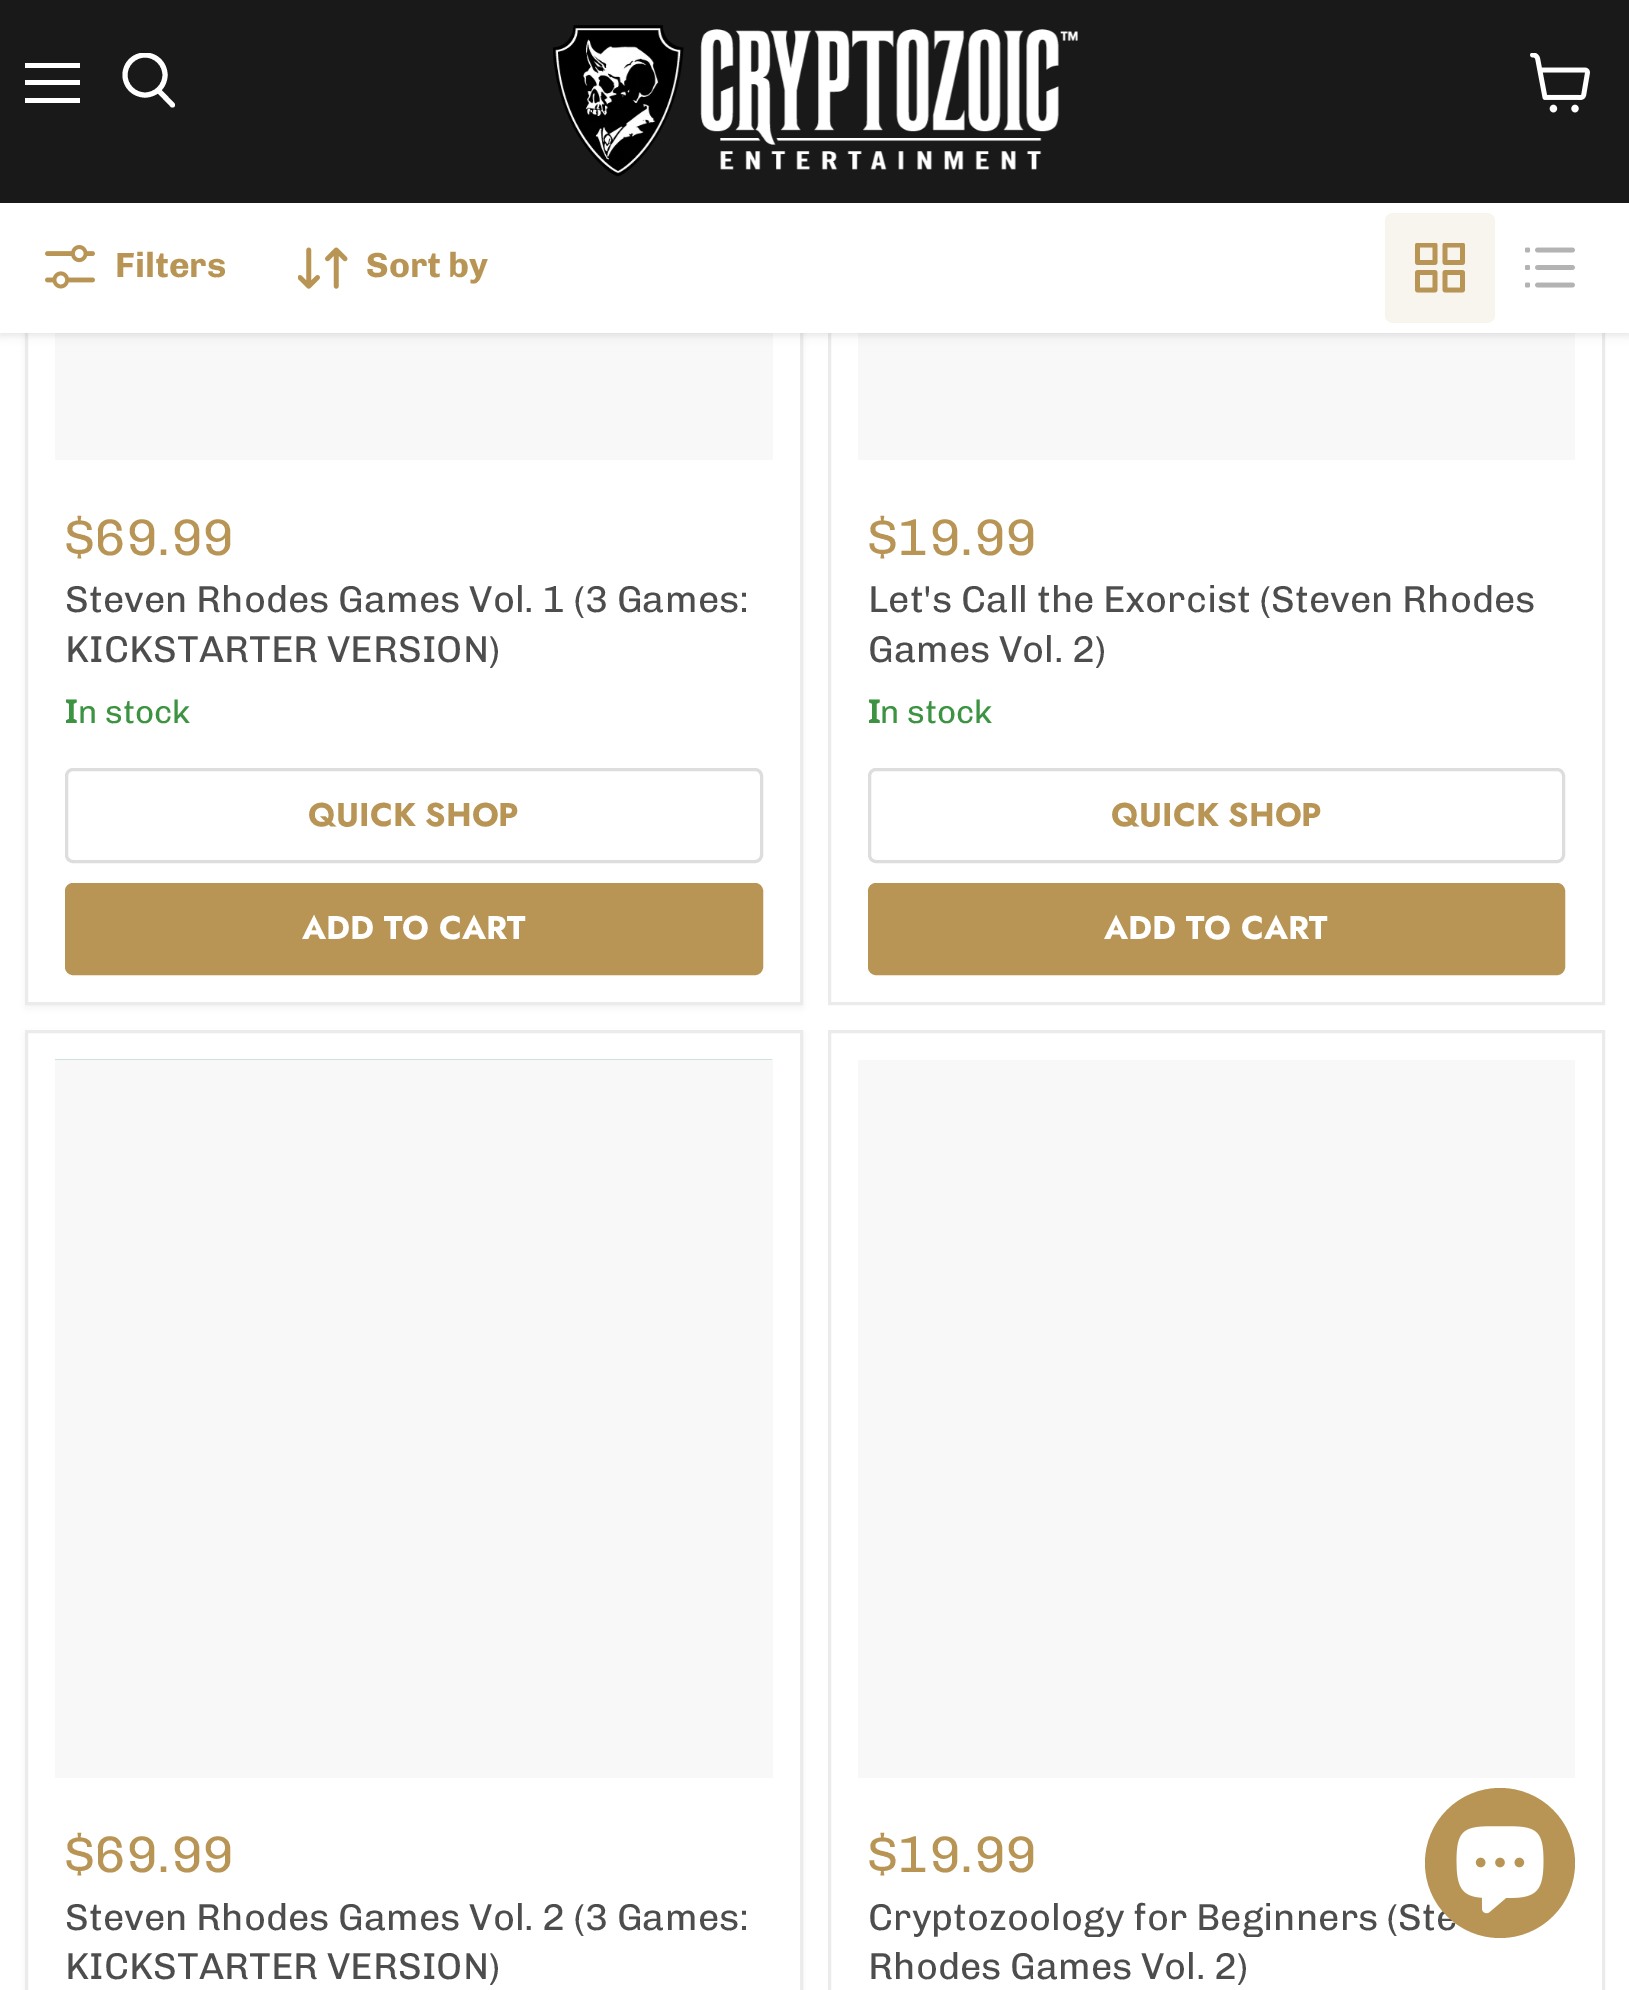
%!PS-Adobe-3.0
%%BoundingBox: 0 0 1629 1990
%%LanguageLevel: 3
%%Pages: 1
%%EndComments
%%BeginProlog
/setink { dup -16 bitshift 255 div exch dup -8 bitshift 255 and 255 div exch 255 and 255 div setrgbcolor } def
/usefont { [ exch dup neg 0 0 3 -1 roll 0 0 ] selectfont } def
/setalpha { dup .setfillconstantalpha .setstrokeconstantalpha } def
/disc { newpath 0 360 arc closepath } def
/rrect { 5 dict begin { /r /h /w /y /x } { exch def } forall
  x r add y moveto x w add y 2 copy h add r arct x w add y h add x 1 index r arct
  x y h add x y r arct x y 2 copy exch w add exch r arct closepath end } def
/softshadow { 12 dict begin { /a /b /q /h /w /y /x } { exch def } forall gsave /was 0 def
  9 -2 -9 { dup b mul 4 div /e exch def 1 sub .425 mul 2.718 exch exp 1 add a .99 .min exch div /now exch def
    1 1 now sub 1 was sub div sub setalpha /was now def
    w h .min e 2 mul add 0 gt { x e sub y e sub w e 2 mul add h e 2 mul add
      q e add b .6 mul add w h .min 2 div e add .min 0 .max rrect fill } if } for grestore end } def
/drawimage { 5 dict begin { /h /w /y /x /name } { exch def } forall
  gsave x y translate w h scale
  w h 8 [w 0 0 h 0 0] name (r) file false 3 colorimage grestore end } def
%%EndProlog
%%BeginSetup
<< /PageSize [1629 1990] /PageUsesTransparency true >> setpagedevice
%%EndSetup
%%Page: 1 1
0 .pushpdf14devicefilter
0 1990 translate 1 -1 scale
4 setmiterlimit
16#FFFFFF setink
0 0 1629 1990 rectfill
16#808080 setink
25 -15 778 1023 0 5 0.11 softshadow
16#FFFFFF setink
28 333 772 669 rectfill
16#EBEBEB setink
3 setlinewidth
26.5 -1.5 775 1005 rectstroke
16#F8F8F8 setink
55 333 718 127 rectfill
16#EBEBEB setink
829.5 -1.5 774 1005 rectstroke
16#F8F8F8 setink
858 333 717 127 rectfill
16#808080 setink
0 205 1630 130 0 5 0.25 softshadow
[
    [0 0 1629 203 16#191919]
    [25 63 55 5 16#FFFFFF]
    [25 80 55 5 16#FFFFFF]
    [25 98 55 5 16#FFFFFF]
] { aload pop setink rectfill } forall
5 setlinewidth
1 setlinecap
172.5 105 moveto 159 91 lineto stroke
gsave
120 53 58 60 rectclip
0 setlinecap
145 75 20 disc stroke
grestore
(img1.raw) 553 25 525 152 drawimage
(img2.raw) 1530 53 60 60 drawimage
0 203 1629 130 rectfill
(img3.raw) 45 245 50 44 drawimage
/Chivo-Bold 35 usefont
16#B89554 setink
115 277 moveto (Filters) show
(img4.raw) 298 247 50 42 drawimage
366 277 moveto (Sort by) show
16#F8F4EE setink
1385 213 110 110 8 rrect fill
(img5.raw) 1415 243 50 50 drawimage
(img6.raw) 1525 247 50 41 drawimage
/Chivo-Regular 51.5 usefont
16#B89554 setink
65 555 moveto ($69.99) show
/Chivo-Regular 37.5 usefont
16#4D4D4D setink
65 612 moveto (Steven Rhodes Games Vol. 1 \(3 Games:) show
65 662 moveto (KICKSTARTER VERSION\)) show
/NotoSans-Bold 32.75 usefont
16#3C9342 setink
65 723 moveto (I) show
/Chivo-Regular 32.75 usefont
78 723 moveto (n stock) show
16#DDDDDD setink
3 setlinewidth
0 setlinecap
66.5 769.5 695 92 6.5 rrect stroke
/Jost-Bold 32.75 usefont
16#B89554 setink
308 826 moveto (QUICK SHOP) show
66.5 884.5 695 89 6.5 rrect gsave fill grestore
stroke
16#FFFFFF setink
302 939 moveto (ADD TO CART) show
/Chivo-Regular 51.5 usefont
16#B89554 setink
868 555 moveto ($19.99) show
/Chivo-Regular 37.5 usefont
16#4D4D4D setink
868 612 moveto (Let's Call the Exorcist \(Steven Rhodes) show
868 662 moveto (Games Vol. 2\)) show
/NotoSans-Bold 32.75 usefont
16#3C9342 setink
868 723 moveto (I) show
/Chivo-Regular 32.75 usefont
880 723 moveto (n stock) show
16#DDDDDD setink
869.5 769.5 694 92 6.5 rrect stroke
/Jost-Bold 32.75 usefont
16#B89554 setink
1111 826 moveto (QUICK SHOP) show
869.5 884.5 694 89 6.5 rrect gsave fill grestore
stroke
16#FFFFFF setink
1104 939 moveto (ADD TO CART) show
16#808080 setink
25 1033 778 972 0 5 0.11 softshadow
16#FFFFFF setink
26.5 1031.5 moveto 801.5 1031.5 lineto 801.5 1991.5 lineto 26.5 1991.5 lineto closepath gsave fill grestore
16#EBEBEB setink
stroke
(img7.raw) 55 1059 718 1 drawimage
16#F8F8F8 setink
55 1060 718 718 rectfill
/Chivo-Regular 51.5 usefont
16#B89554 setink
65 1872 moveto ($69.99) show
/Chivo-Regular 37.5 usefont
16#4D4D4D setink
65 1930 moveto (Steven Rhodes Games Vol. 2 \(3 Games:) show
65 1979 moveto (KICKSTARTER VERSION\)) show
16#EBEBEB setink
829.5 1031.5 774 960 rectstroke
16#F8F8F8 setink
858 1060 717 718 rectfill
/Chivo-Regular 51.5 usefont
16#B89554 setink
868 1872 moveto ($19.99) show
/Chivo-Regular 37.5 usefont
16#4D4D4D setink
868 1930 moveto (Cryptozoology for Beginners \(Ste) show
868 1979 moveto (Rhodes Games Vol. 2\)) show
16#B89554 setink
1500 1863 75 disc fill
(img8.raw) 1456 1826 88 88 drawimage
.poppdf14devicefilter showpage
%%EOF
